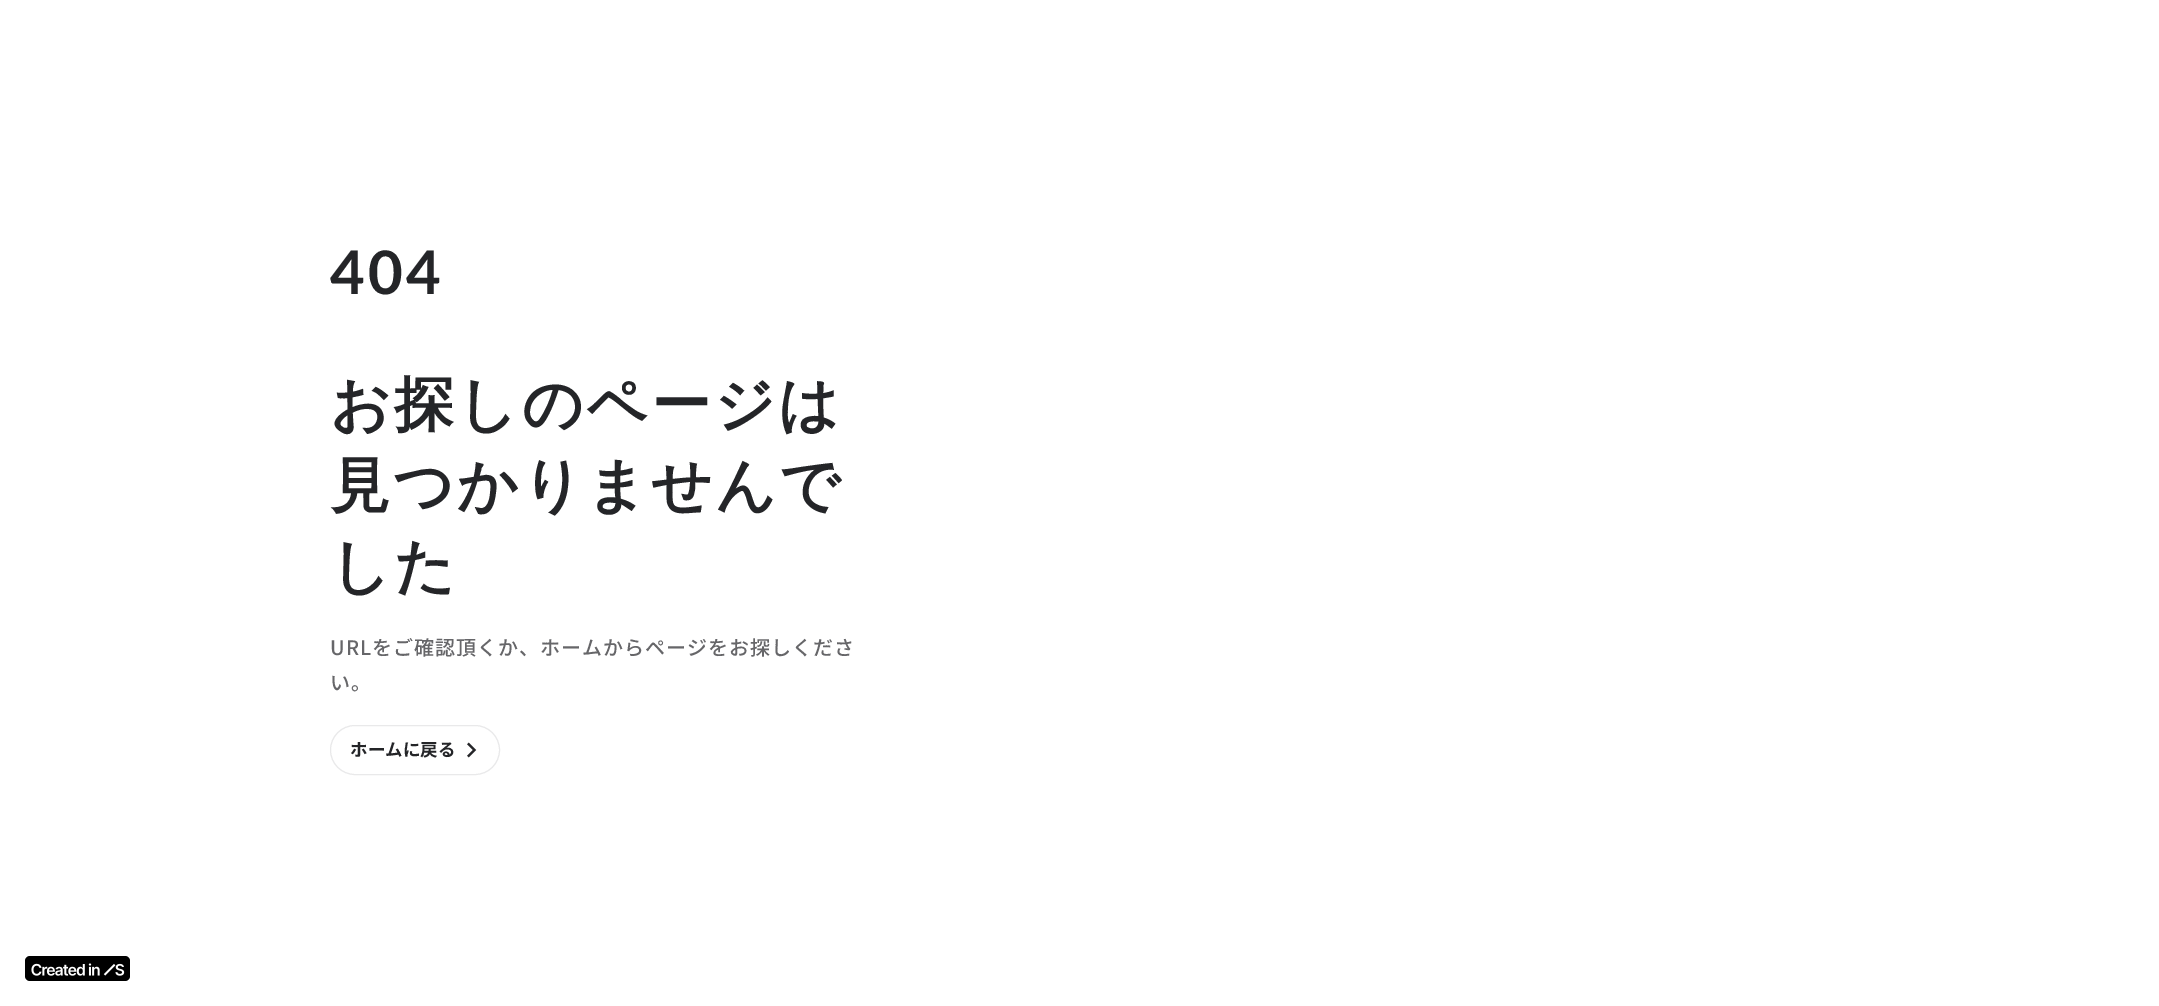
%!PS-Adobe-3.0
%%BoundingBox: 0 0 2159 1006
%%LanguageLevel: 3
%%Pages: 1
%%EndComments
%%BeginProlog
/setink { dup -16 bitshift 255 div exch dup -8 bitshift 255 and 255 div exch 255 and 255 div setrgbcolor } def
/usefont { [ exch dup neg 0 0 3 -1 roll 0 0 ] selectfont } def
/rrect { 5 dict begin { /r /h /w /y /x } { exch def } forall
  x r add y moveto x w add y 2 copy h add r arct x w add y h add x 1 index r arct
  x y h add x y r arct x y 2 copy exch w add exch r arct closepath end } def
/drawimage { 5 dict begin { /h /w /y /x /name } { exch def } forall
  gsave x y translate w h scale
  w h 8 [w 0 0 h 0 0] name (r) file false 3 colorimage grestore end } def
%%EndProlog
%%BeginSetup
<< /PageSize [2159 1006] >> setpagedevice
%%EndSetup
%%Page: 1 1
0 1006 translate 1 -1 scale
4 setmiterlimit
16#FFFFFF setink
0 0 2159 1006 rectfill
/Lato-Bold 60 usefont
16#242528 setink
330 294 moveto 3 0 (404) ashow
/WenQuanYiZenHei-Bold 60 usefont
330 425 moveto 3 0 (お探しのページは) ashow
330 506 moveto 3 0 (見つかりませんで) ashow
330 587 moveto 3 0 (した) ashow
/NotoSansJP-Medium 20 usefont
16#666669 setink
330 655 moveto 1 0 (URLをご確認頂くか、ホームからページをお探しくださ) ashow
330 690 moveto 1 0 (い。) ashow
16#E9E9EA setink
330.5 725.5 169 49 24.5 rrect stroke
/NotoSansJP-Bold 17.5 usefont
16#242528 setink
350 756 moveto (ホームに戻る) show
(img1.raw) 467 742 10 16 drawimage
16#000000 setink
25 956 105 25 5 rrect fill
(img2.raw) 31 963 94 13 drawimage
showpage
%%EOF
